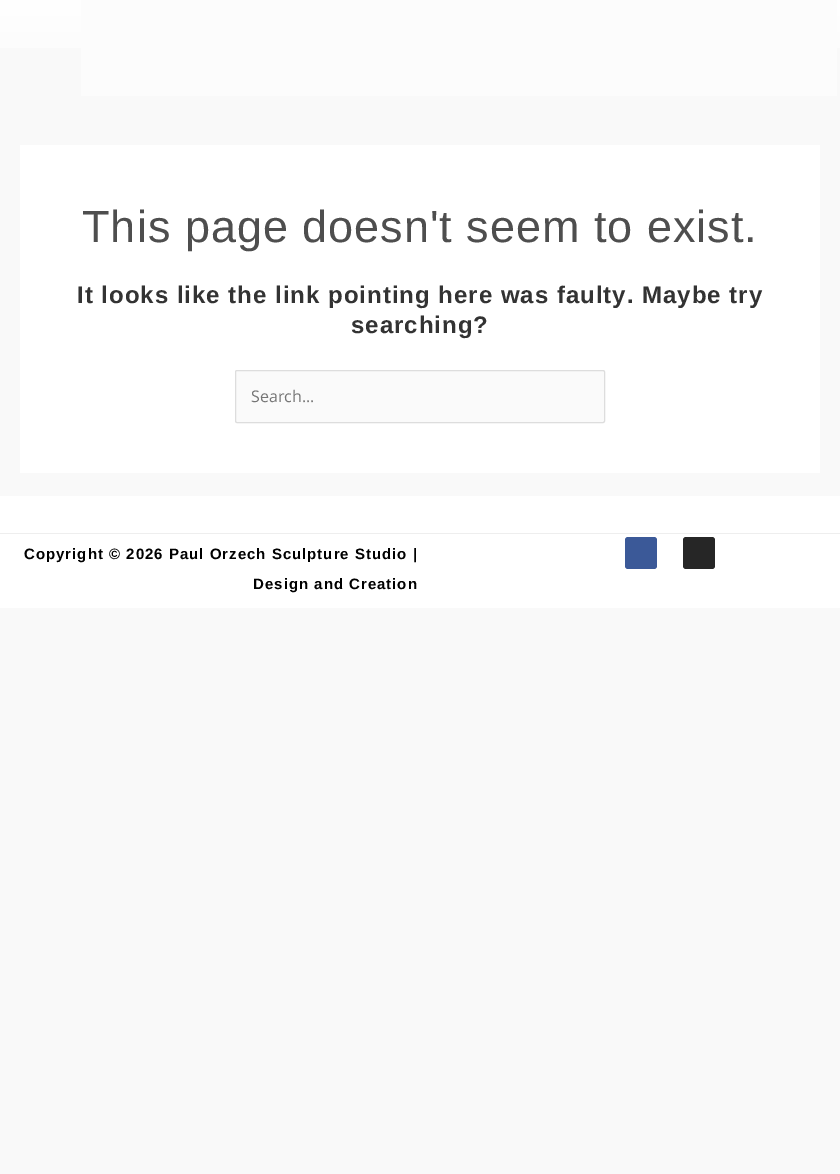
%!PS-Adobe-3.0
%%BoundingBox: 0 0 840 1174
%%LanguageLevel: 3
%%Pages: 1
%%EndComments
%%BeginProlog
/setink { dup -16 bitshift 255 div exch dup -8 bitshift 255 and 255 div exch 255 and 255 div setrgbcolor } def
/usefont { [ exch dup neg 0 0 3 -1 roll 0 0 ] selectfont } def
/rrect { 5 dict begin { /r /h /w /y /x } { exch def } forall
  x r add y moveto x w add y 2 copy h add r arct x w add y h add x 1 index r arct
  x y h add x y r arct x y 2 copy exch w add exch r arct closepath end } def
%%EndProlog
%%BeginSetup
<< /PageSize [840 1174] >> setpagedevice
%%EndSetup
%%Page: 1 1
0 1174 translate 1 -1 scale
4 setmiterlimit
16#F9F9F9 setink
0 0 840 1174 rectfill
gsave 0 0 moveto 840 0 lineto 840 48 lineto 0 48 lineto closepath clip newpath
<< /ShadingType 2 /ColorSpace /DeviceRGB /Coords [420 0 420 96] /Extend [true true] /Function << /FunctionType 2 /Domain [0 1] /C0 [1 1 1] /C1 [0.973 0.973 0.973] /N 1 >> >> shfill grestore
16#FCFCFC setink
81 0 756 96 rectfill
16#FFFFFF setink
20 145 800 328 rectfill
/LiberationSans-Regular 45 usefont
16#4E4E4E setink
82 242 moveto 1 0 (This page doesn't seem to exist.) ashow
/LiberationSans-Bold 24 usefont
16#333333 setink
77 303 moveto 1 0 (It looks like the link pointing here was faulty. Maybe try) ashow
351 333 moveto 1 0 (searching?) ashow
16#FAFAFA setink
235.5 370.5 369 52 1.5 rrect gsave fill grestore
16#DDDDDD setink
stroke
/OpenSans-Regular 16 usefont
16#757575 setink
251 402 moveto (Search...) show
[
    [0 496 840 37 16#FFFFFF]
    [0 534 840 74 16#FFFFFF]
    [0 533 840 1 16#EEEEEE]
] { aload pop setink rectfill } forall
/LiberationSans-Bold 15 usefont
16#000000 setink
24 559 moveto 1 0 (Copyright © 2026 Paul Orzech Sculpture Studio |) ashow
253 589 moveto 1 0 (Design and Creation) ashow
16#3B5998 setink
625 537 32 32 3 rrect fill
16#262626 setink
683 537 32 32 3 rrect fill
showpage
%%EOF
